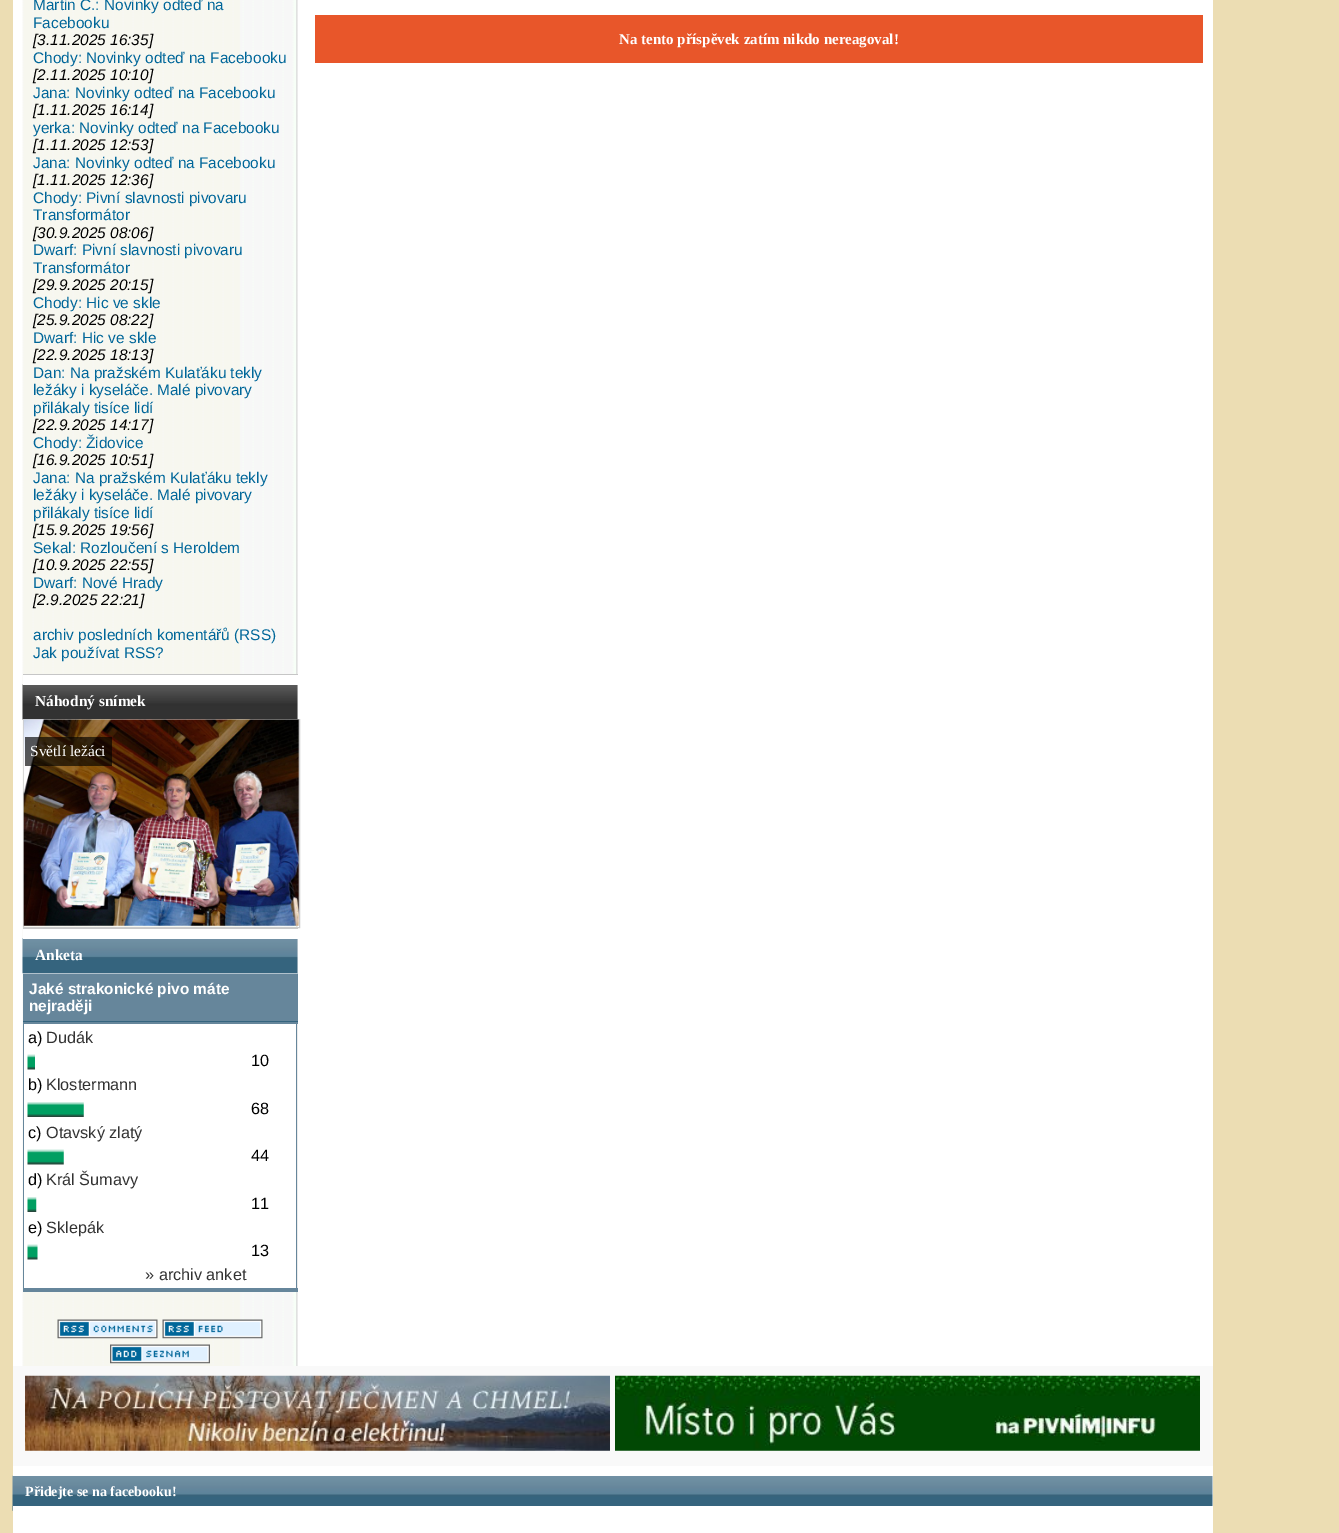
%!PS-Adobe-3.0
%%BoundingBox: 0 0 1339 1533
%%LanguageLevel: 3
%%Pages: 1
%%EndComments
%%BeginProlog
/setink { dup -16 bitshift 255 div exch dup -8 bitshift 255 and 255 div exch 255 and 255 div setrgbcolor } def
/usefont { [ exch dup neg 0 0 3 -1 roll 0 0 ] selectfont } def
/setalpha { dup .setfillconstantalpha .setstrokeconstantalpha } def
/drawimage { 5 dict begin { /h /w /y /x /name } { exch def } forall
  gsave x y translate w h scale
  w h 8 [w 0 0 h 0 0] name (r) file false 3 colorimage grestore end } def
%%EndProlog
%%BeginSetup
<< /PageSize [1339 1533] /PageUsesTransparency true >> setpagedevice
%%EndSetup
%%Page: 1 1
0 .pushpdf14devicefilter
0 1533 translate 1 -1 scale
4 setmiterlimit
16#ECDDB3 setink
0 0 1339 1533 rectfill
16#FFFFFF setink
13 0 1200 1506 rectfill
(img1.raw) 22 0 276 1366 drawimage
16#C6C6C6 setink
23 674 275 1 rectfill
/LiberationSans-Regular 15.4 usefont
16#006699 setink
33 10 moveto (Martin C.: Novinky odteď na) show
33 28 moveto (Facebooku) show
/LiberationSans-Italic 15.4 usefont
16#000000 setink
33 45 moveto ([3.11.2025 16:35]) show
/LiberationSans-Regular 15.4 usefont
16#006699 setink
33 63 moveto (Chody: Novinky odteď na Facebooku) show
/LiberationSans-Italic 15.4 usefont
16#000000 setink
33 80 moveto ([2.11.2025 10:10]) show
/LiberationSans-Regular 15.4 usefont
16#006699 setink
33 98 moveto (Jana: Novinky odteď na Facebooku) show
/LiberationSans-Italic 15.4 usefont
16#000000 setink
33 115 moveto ([1.11.2025 16:14]) show
/LiberationSans-Regular 15.4 usefont
16#006699 setink
33 133 moveto (yerka: Novinky odteď na Facebooku) show
/LiberationSans-Italic 15.4 usefont
16#000000 setink
33 150 moveto ([1.11.2025 12:53]) show
/LiberationSans-Regular 15.4 usefont
16#006699 setink
33 168 moveto (Jana: Novinky odteď na Facebooku) show
/LiberationSans-Italic 15.4 usefont
16#000000 setink
33 185 moveto ([1.11.2025 12:36]) show
/LiberationSans-Regular 15.4 usefont
16#006699 setink
33 203 moveto (Chody: Pivní slavnosti pivovaru) show
33 220 moveto (Transformátor) show
/LiberationSans-Italic 15.4 usefont
16#000000 setink
33 238 moveto ([30.9.2025 08:06]) show
/LiberationSans-Regular 15.4 usefont
16#006699 setink
33 255 moveto (Dwarf: Pivní slavnosti pivovaru) show
33 273 moveto (Transformátor) show
/LiberationSans-Italic 15.4 usefont
16#000000 setink
33 290 moveto ([29.9.2025 20:15]) show
/LiberationSans-Regular 15.4 usefont
16#006699 setink
33 308 moveto (Chody: Hic ve skle) show
/LiberationSans-Italic 15.4 usefont
16#000000 setink
33 325 moveto ([25.9.2025 08:22]) show
/LiberationSans-Regular 15.4 usefont
16#006699 setink
33 343 moveto (Dwarf: Hic ve skle) show
/LiberationSans-Italic 15.4 usefont
16#000000 setink
33 360 moveto ([22.9.2025 18:13]) show
/LiberationSans-Regular 15.4 usefont
16#006699 setink
[
    [(Dan: Na pražském Kulaťáku tekly) 33 378]
    [(ležáky i kyseláče. Malé pivovary) 33 395]
    [(přilákaly tisíce lidí) 33 413]
] { aload pop moveto show } forall
/LiberationSans-Italic 15.4 usefont
16#000000 setink
33 430 moveto ([22.9.2025 14:17]) show
/LiberationSans-Regular 15.4 usefont
16#006699 setink
33 448 moveto (Chody: Židovice) show
/LiberationSans-Italic 15.4 usefont
16#000000 setink
33 465 moveto ([16.9.2025 10:51]) show
/LiberationSans-Regular 15.4 usefont
16#006699 setink
[
    [(Jana: Na pražském Kulaťáku tekly) 33 483]
    [(ležáky i kyseláče. Malé pivovary) 33 500]
    [(přilákaly tisíce lidí) 33 518]
] { aload pop moveto show } forall
/LiberationSans-Italic 15.4 usefont
16#000000 setink
33 535 moveto ([15.9.2025 19:56]) show
/LiberationSans-Regular 15.4 usefont
16#006699 setink
33 553 moveto (Sekal: Rozloučení s Heroldem) show
/LiberationSans-Italic 15.4 usefont
16#000000 setink
33 570 moveto ([10.9.2025 22:55]) show
/LiberationSans-Regular 15.4 usefont
16#006699 setink
33 588 moveto (Dwarf: Nové Hrady) show
/LiberationSans-Italic 15.4 usefont
16#000000 setink
33 605 moveto ([2.9.2025 22:21]) show
/LiberationSans-Regular 15.4 usefont
16#006699 setink
33 640 moveto (archiv posledních komentářů \(RSS\)) show
33 658 moveto (Jak používat RSS?) show
(img2.raw) 22 684 276 36 drawimage
16#FFFFFF setink
23 675 275 10 rectfill
16#C6C6C6 setink
23 928 275 1 rectfill
/LiberationSerif-Bold 15.4 usefont
16#FFFFFF setink
35 706 moveto (Náhodný snímek) show
16#CCCCCC setink
23.5 719.5 276 208 rectstroke
(img3.raw) 23 719 276 207 drawimage
0.65 setalpha
16#000000 setink
25 737 87 29 rectfill
/LiberationSerif-Regular 15.4 usefont
1 setalpha
16#FFFFFF setink
30 756 moveto (Světlí ležáci) show
(img4.raw) 22 938 276 36 drawimage
23 929 275 10 rectfill
/LiberationSerif-Bold 15.4 usefont
35 960 moveto (Anketa) show
[
    [23 974 275 50 16#66869B]
    [23 973 275 1 16#B0C1CC]
    [23 1021 275 1 16#35647E]
] { aload pop setink rectfill } forall
/LiberationSans-Bold 15.4 usefont
16#FFFFFF setink
29 994 moveto (Jaké strakonické pivo máte) show
29 1011 moveto (nejraději) show
[
    [24 1024 272 264 16#FFFFFF]
    [296 1023 1 268 16#66869B]
    [23 1288 275 4 16#66869B]
    [23 1023 1 268 16#66869B]
] { aload pop setink rectfill } forall
/LiberationSans-Regular 16.25 usefont
16#000000 setink
28 1043 moveto (a\)) show
16#323232 setink
46 1043 moveto (Dudák) show
(img5.raw) 27 1054 8 16 drawimage
16#000000 setink
251 1066 moveto (10) show
28 1090 moveto (b\)) show
16#323232 setink
46 1090 moveto (Klostermann) show
(img6.raw) 27 1102 57 15 drawimage
16#000000 setink
251 1114 moveto (68) show
28 1138 moveto (c\)) show
16#323232 setink
46 1138 moveto (Otavský zlatý) show
(img7.raw) 27 1149 37 16 drawimage
16#000000 setink
251 1161 moveto (44) show
28 1185 moveto (d\)) show
16#323232 setink
46 1185 moveto (Král Šumavy) show
(img8.raw) 27 1197 10 15 drawimage
16#000000 setink
251 1209 moveto (11) show
28 1233 moveto (e\)) show
16#323232 setink
46 1233 moveto (Sklepák) show
(img9.raw) 27 1244 11 16 drawimage
16#000000 setink
251 1256 moveto (13) show
16#323232 setink
145 1280 moveto (» archiv anket) show
(img10.raw) 57 1319 101 20 drawimage
(img11.raw) 162 1319 101 20 drawimage
(img12.raw) 110 1344 100 20 drawimage
16#E8562A setink
315 15 888 48 rectfill
/LiberationSerif-Bold 15 usefont
16#FFFFFF setink
619 44 moveto (Na tento příspěvek zatím nikdo nereagoval!) show
16#F9F9F9 setink
13 1366 1200 100 rectfill
(img13.raw) 25 1375 585 76 drawimage
(img14.raw) 615 1375 585 76 drawimage
(img15.raw) 12 1475 1201 36 drawimage
16#FFFFFF setink
13 1475 1200 1 rectfill
/LiberationSerif-Bold 14 usefont
25 1496 moveto (Přidejte se na facebooku!) show
13 1506 1200 27 rectfill
.poppdf14devicefilter showpage
%%EOF
